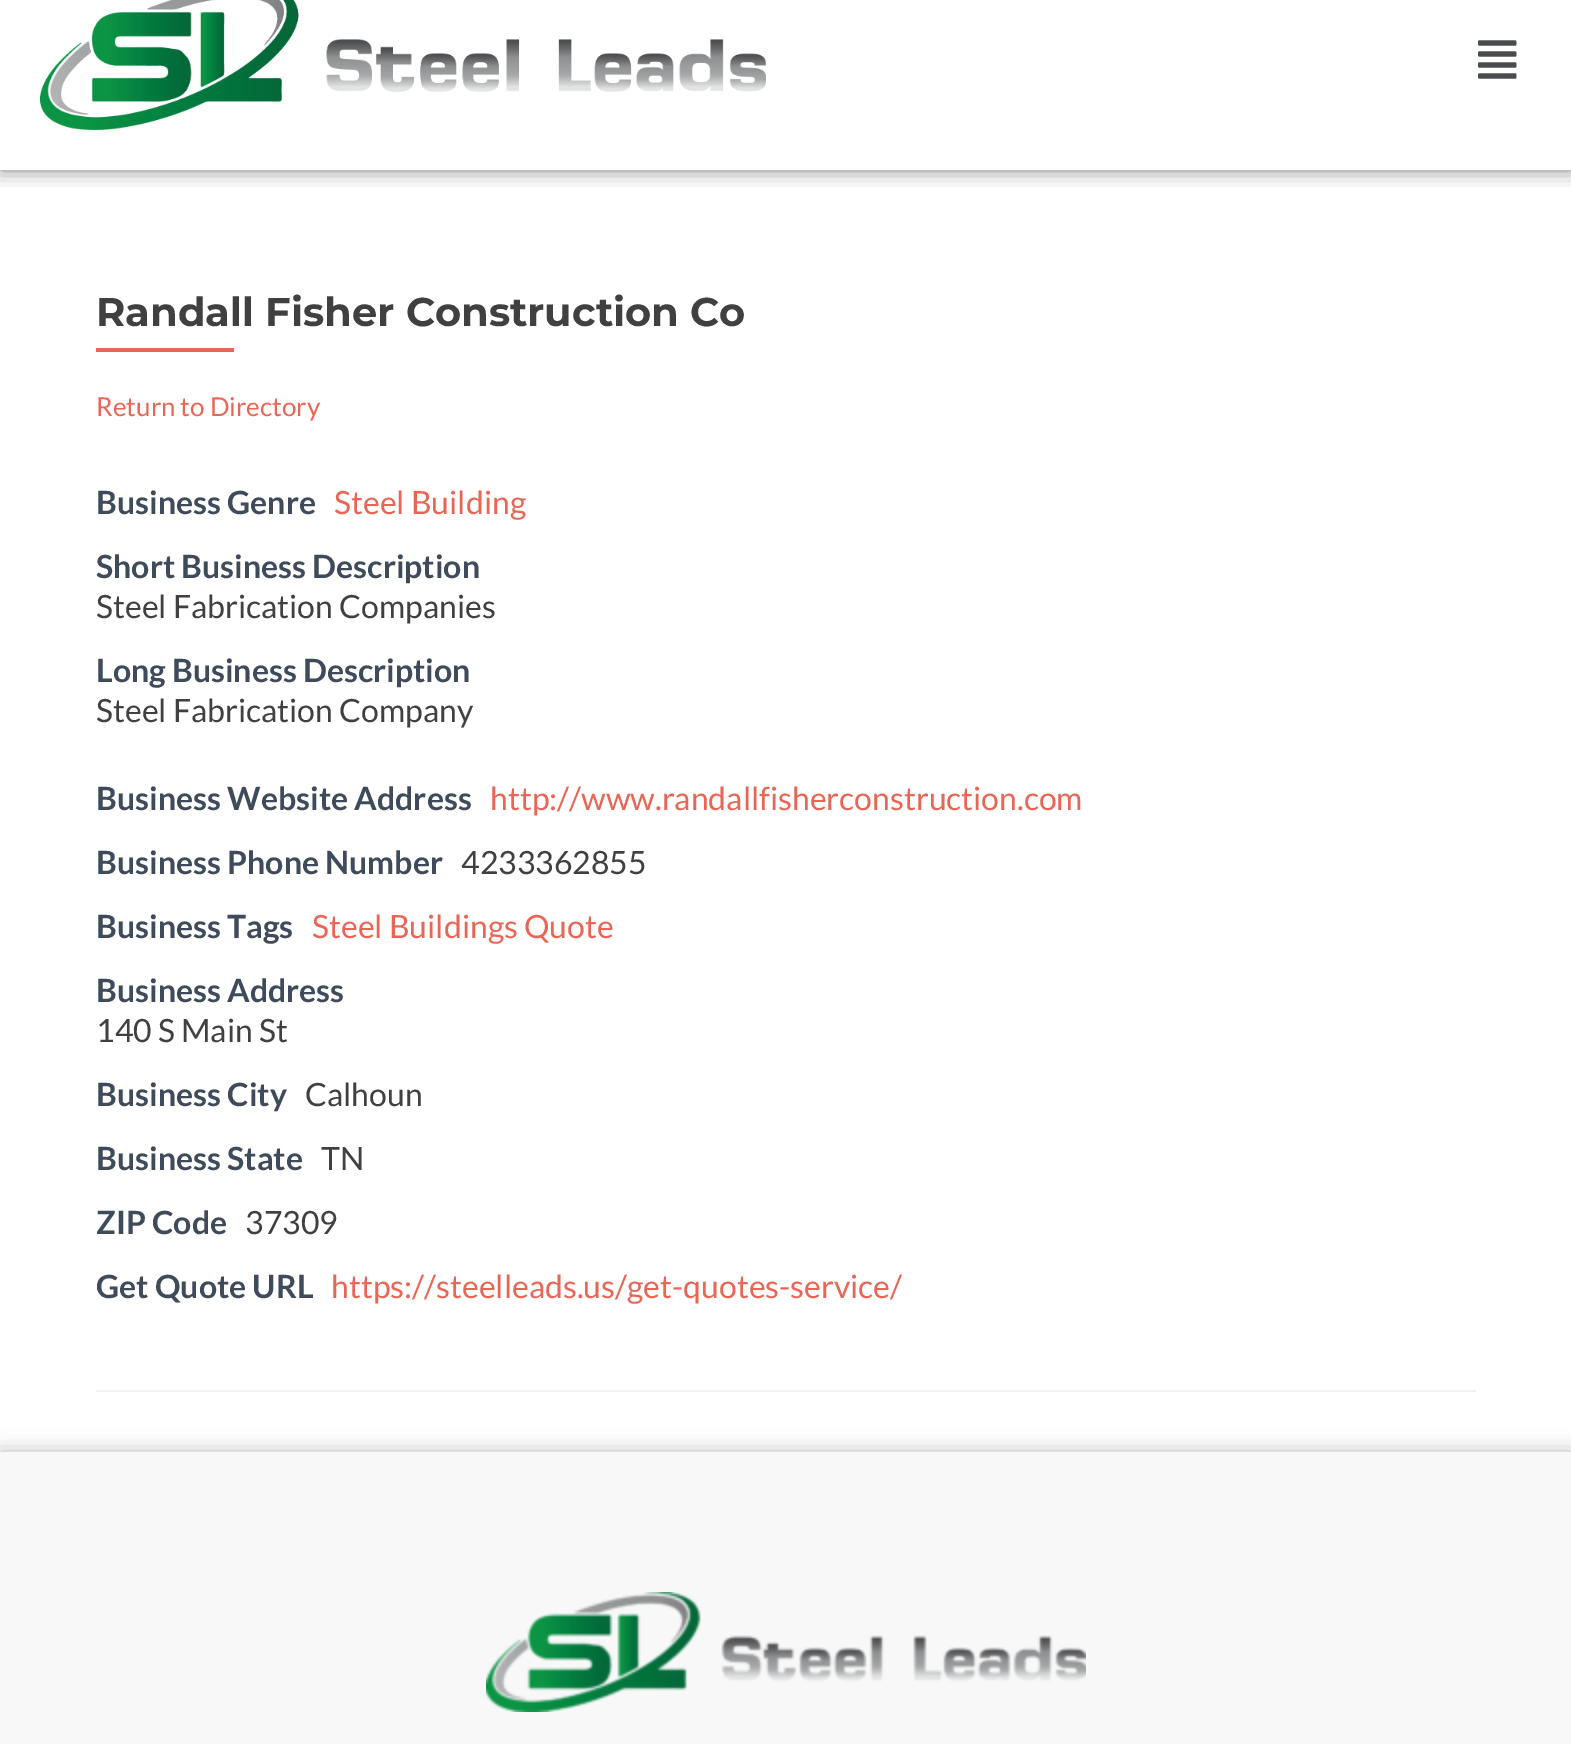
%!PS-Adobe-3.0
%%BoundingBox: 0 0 1571 1744
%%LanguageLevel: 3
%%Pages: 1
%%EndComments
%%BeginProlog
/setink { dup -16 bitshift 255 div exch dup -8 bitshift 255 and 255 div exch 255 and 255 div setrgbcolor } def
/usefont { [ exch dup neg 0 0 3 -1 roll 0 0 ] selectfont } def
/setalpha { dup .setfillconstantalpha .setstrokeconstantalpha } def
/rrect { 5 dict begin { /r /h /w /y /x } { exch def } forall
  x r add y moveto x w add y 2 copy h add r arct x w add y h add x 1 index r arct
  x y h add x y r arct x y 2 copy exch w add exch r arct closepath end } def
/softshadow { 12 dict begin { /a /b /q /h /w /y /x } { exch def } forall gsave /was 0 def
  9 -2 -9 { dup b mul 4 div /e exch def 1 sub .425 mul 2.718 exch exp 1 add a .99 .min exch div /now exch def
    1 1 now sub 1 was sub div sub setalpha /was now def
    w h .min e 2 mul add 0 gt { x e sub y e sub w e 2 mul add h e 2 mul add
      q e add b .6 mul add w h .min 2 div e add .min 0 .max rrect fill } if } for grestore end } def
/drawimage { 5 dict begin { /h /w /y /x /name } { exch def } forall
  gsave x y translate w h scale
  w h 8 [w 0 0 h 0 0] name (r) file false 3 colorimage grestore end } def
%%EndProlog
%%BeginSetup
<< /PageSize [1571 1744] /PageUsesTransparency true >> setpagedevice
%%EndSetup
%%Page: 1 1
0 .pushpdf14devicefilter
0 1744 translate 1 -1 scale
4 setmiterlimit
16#FFFFFF setink
0 0 1571 1744 rectfill
gsave
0 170 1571 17 rectclip
16#000000 setink
0 -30 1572 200 0 10 0.5 softshadow
grestore
(img1.raw) 40 0 726 130 drawimage
(img2.raw) 1478 40 39 39 drawimage
16#F2F2F2 setink
96 1390 1380 2 rectfill
/Montserrat-Bold 40 usefont
16#404040 setink
96 326 moveto (Randall Fisher Construction Co) show
16#E96656 setink
96 348 138 4 rectfill
/Lato-Regular 26 usefont
96 416 moveto (Return to Directory) show
/Lato-Bold 32 usefont
16#3F4B5B setink
96 514 moveto (Business Genre) show
/Lato-Regular 32 usefont
16#E96656 setink
334 514 moveto (Steel Building) show
/Lato-Bold 32 usefont
16#3F4B5B setink
96 578 moveto (Short Business Description) show
/Lato-Regular 32 usefont
16#404040 setink
96 618 moveto (Steel Fabrication Companies) show
/Lato-Bold 32 usefont
16#3F4B5B setink
96 682 moveto (Long Business Description) show
/Lato-Regular 32 usefont
16#404040 setink
96 722 moveto (Steel Fabrication Company) show
/Lato-Bold 32 usefont
16#3F4B5B setink
96 810 moveto (Business Website Address) show
/Lato-Regular 32 usefont
16#E96656 setink
490 810 moveto (http://www.randallfisherconstruction.com) show
/Lato-Bold 32 usefont
16#3F4B5B setink
96 874 moveto (Business Phone Number) show
/Lato-Regular 32 usefont
16#404040 setink
461 874 moveto (4233362855) show
/Lato-Bold 32 usefont
16#3F4B5B setink
96 938 moveto (Business Tags) show
/Lato-Regular 32 usefont
16#E96656 setink
312 938 moveto (Steel Buildings Quote) show
/Lato-Bold 32 usefont
16#3F4B5B setink
96 1002 moveto (Business Address) show
/Lato-Regular 32 usefont
16#404040 setink
96 1042 moveto (140 S Main St) show
/Lato-Bold 32 usefont
16#3F4B5B setink
96 1106 moveto (Business City) show
/Lato-Regular 32 usefont
16#404040 setink
305 1106 moveto (Calhoun) show
/Lato-Bold 32 usefont
16#3F4B5B setink
96 1170 moveto (Business State) show
/Lato-Regular 32 usefont
16#404040 setink
321 1170 moveto (TN) show
/Lato-Bold 32 usefont
16#3F4B5B setink
96 1234 moveto (ZIP Code) show
/Lato-Regular 32 usefont
16#404040 setink
245 1234 moveto (37309) show
/Lato-Bold 32 usefont
16#3F4B5B setink
96 1298 moveto (Get Quote URL) show
/Lato-Regular 32 usefont
16#E96656 setink
331 1298 moveto (https://steelleads.us/get-quotes-service/) show
16#000000 setink
0 1452 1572 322 0 10 0.26 softshadow
16#F8F8F8 setink
0 1452 1571 292 rectfill
(img3.raw) 486 1592 600 120 drawimage
.poppdf14devicefilter showpage
%%EOF
